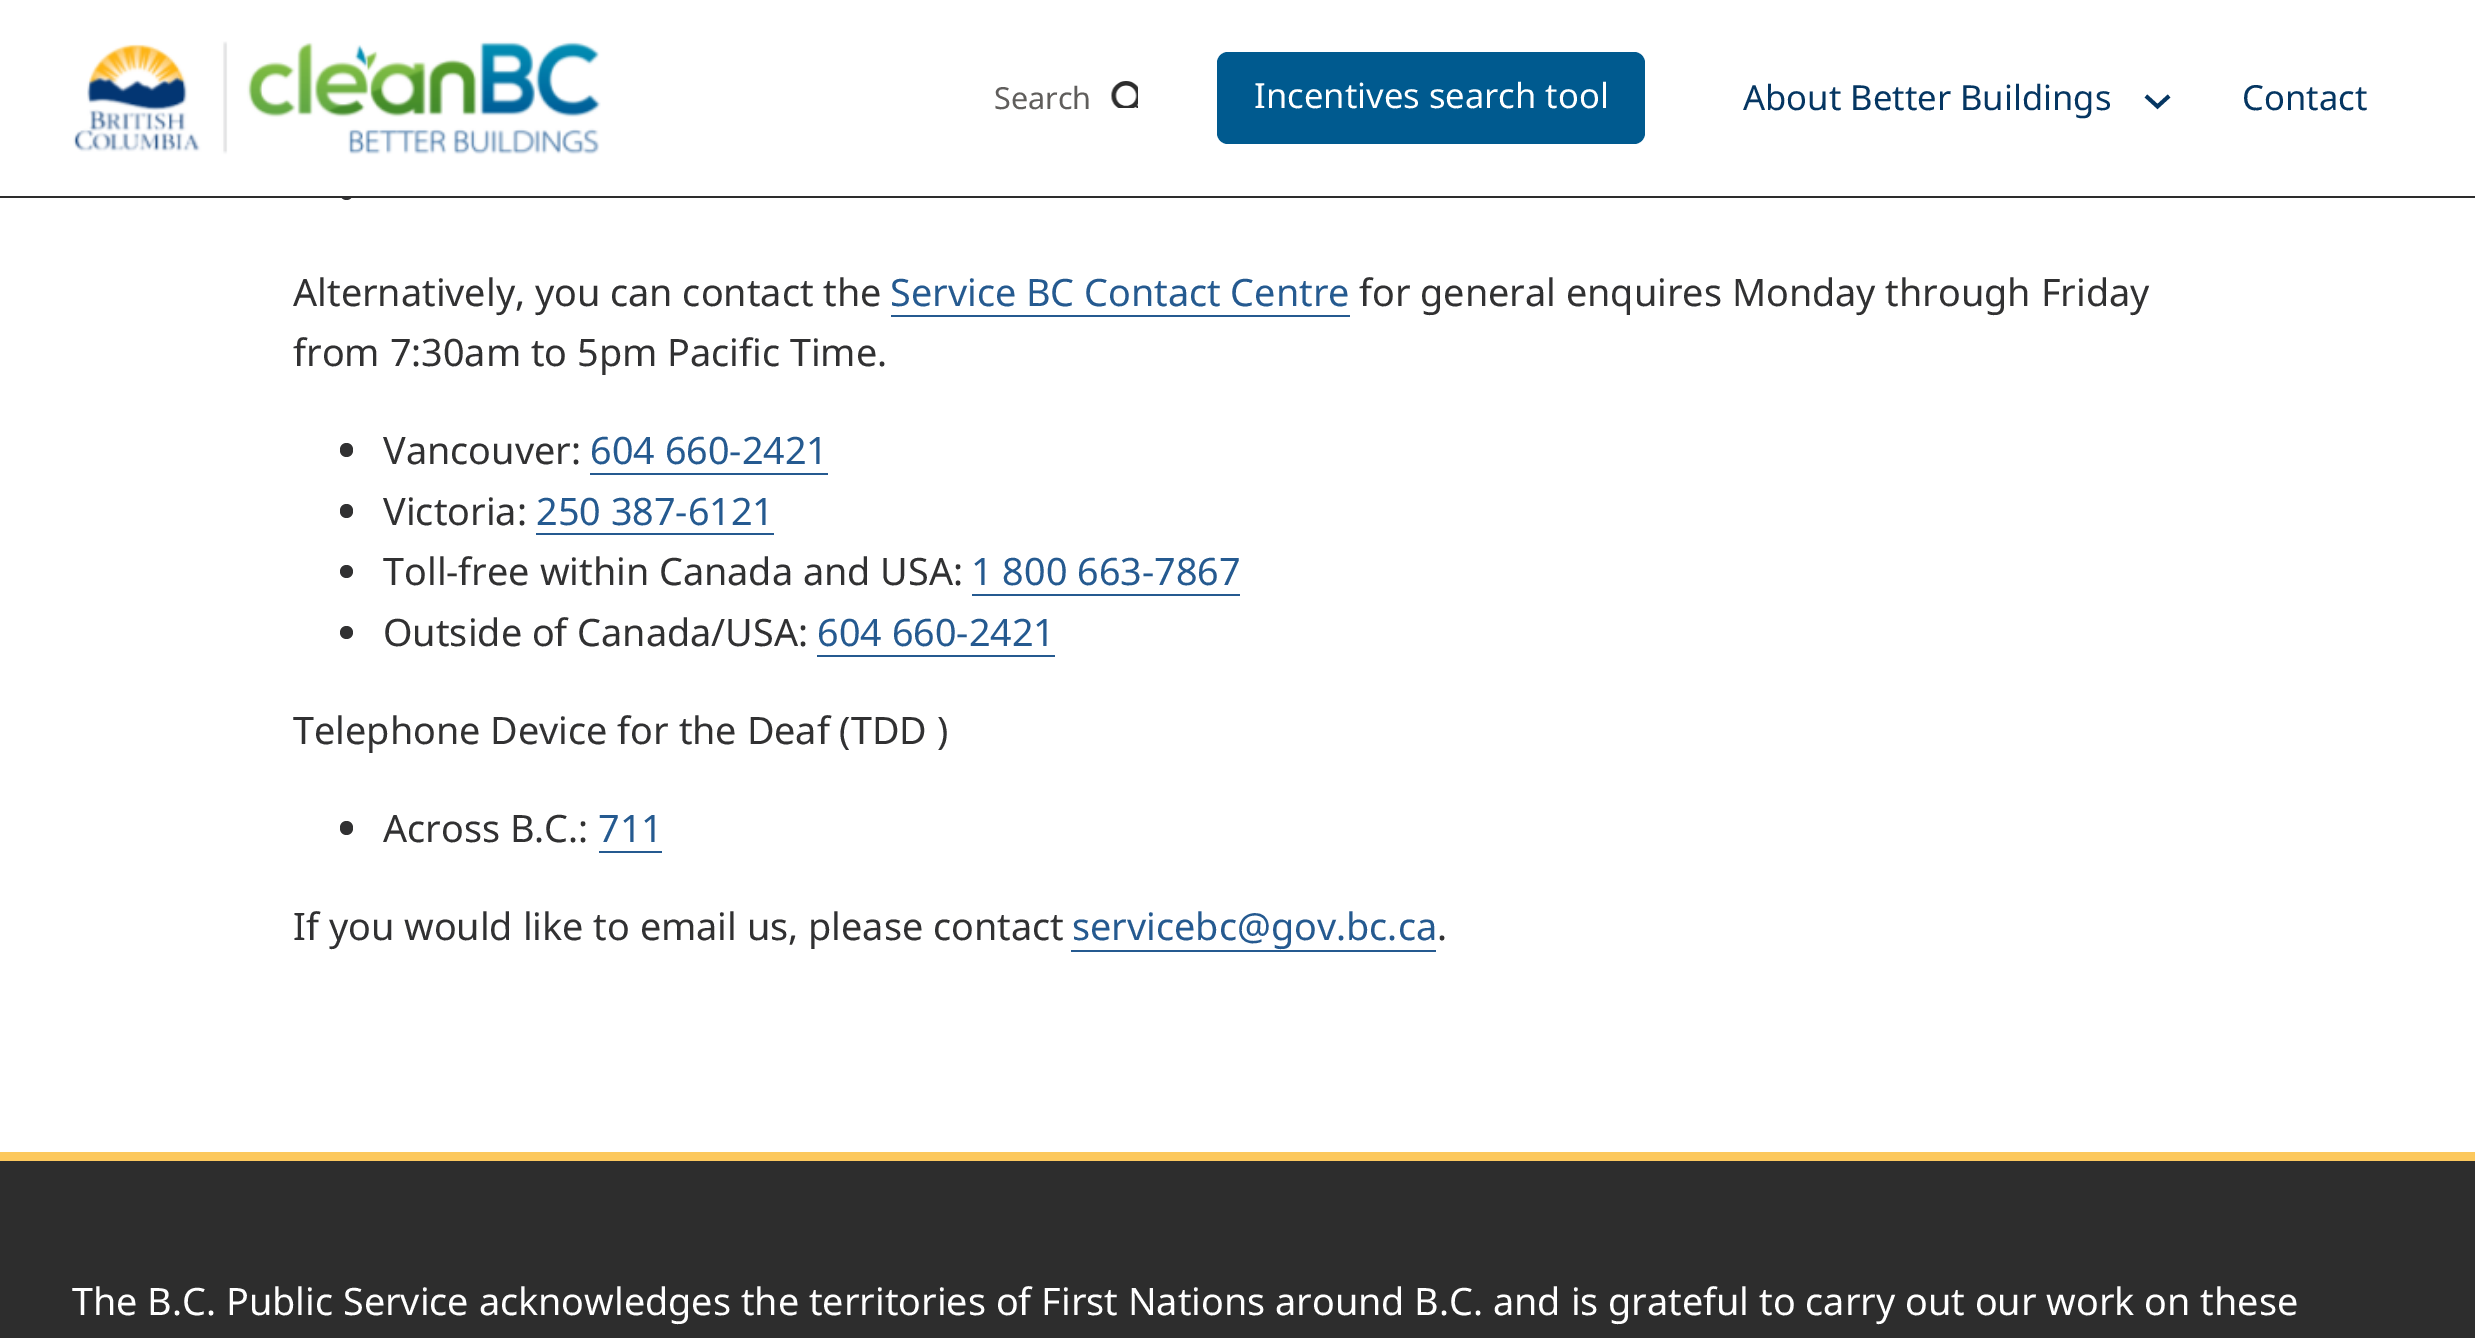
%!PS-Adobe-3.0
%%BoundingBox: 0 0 2475 1338
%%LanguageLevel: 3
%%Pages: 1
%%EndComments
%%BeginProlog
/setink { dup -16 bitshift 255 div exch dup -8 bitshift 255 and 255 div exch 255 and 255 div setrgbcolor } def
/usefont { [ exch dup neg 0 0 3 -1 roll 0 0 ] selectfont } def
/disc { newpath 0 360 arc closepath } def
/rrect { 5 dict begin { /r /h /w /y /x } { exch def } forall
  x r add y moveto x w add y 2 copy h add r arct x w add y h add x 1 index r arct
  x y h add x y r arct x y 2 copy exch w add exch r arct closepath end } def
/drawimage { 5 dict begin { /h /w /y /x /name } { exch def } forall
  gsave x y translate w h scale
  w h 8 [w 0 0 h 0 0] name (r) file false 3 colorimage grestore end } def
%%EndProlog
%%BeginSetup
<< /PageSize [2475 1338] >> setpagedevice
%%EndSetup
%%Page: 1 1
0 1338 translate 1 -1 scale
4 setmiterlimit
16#FFFFFF setink
0 0 2475 1338 rectfill
16#313132 setink
346.5 193.5 6.5 disc fill
16#FFFFFF setink
340 187 13 9 rectfill
16#2D2D2D setink
0 196 2475 2 rectfill
(img1.raw) 73 41 528 114 drawimage
/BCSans-Regular 30.5 usefont
16#605E5C setink
994 109 moveto (Search) show
(img2.raw) 1111 81 27 27 drawimage
16#005A8F setink
1217 52 428 92 11 rrect fill
/BCSans-Regular 34.6 usefont
16#FFFFFF setink
1254 108 moveto (Incentives search tool) show
16#053662 setink
1743 110 moveto (About Better Buildings) show
3.8 setlinewidth
2146 96 moveto 2157.5 106.5 lineto 2169 96 lineto stroke
2242 110 moveto (Contact) show
/BCSans-Regular 37.77 usefont
16#313132 setink
293 306 moveto (Alternatively, you can contact the) show
16#255A90 setink
890 306 moveto (Service BC Contact Centre) show
891 315 459 2 rectfill
16#313132 setink
1359 306 moveto (for general enquires Monday through Friday) show
293 366 moveto (from 7:30am to 5pm Pacific Time.) show
340 443 13 14 6.5 rrect fill
383 464 moveto (Vancouver:) show
16#255A90 setink
590 464 moveto (604 660-2421) show
590 473 238 2 rectfill
16#313132 setink
340 504 13 14 6.5 rrect fill
383 525 moveto (Victoria:) show
16#255A90 setink
536 525 moveto (250 387-6121) show
536 533 238 2 rectfill
16#313132 setink
346.5 571.5 6.5 disc fill
383 585 moveto (Toll-free within Canada and USA:) show
16#255A90 setink
971 585 moveto (1 800 663-7867) show
972 594 268 2 rectfill
16#313132 setink
346.5 632.5 6.5 disc fill
383 646 moveto (Outside of Canada/USA:) show
16#255A90 setink
817 646 moveto (604 660-2421) show
817 655 238 2 rectfill
16#313132 setink
293 744 moveto (Telephone Device for the Deaf \(TDD \)) show
340 821 13 14 6.5 rrect fill
383 842 moveto (Across B.C.:) show
16#255A90 setink
598 842 moveto (711) show
599 851 63 2 rectfill
16#313132 setink
293 940 moveto (If you would like to email us, please contact) show
16#255A90 setink
1072 940 moveto (servicebc@gov.bc.ca) show
1071 950 365 2 rectfill
16#313132 setink
1437 940 moveto (.) show
16#2D2D2D setink
0 1161 2475 177 rectfill
16#FCC85D setink
0 1152 2475 9 rectfill
16#FFFFFF setink
72 1315 moveto (The B.C. Public Service acknowledges the territories of First Nations around B.C. and is grateful to carry out our work on these) show
showpage
%%EOF
